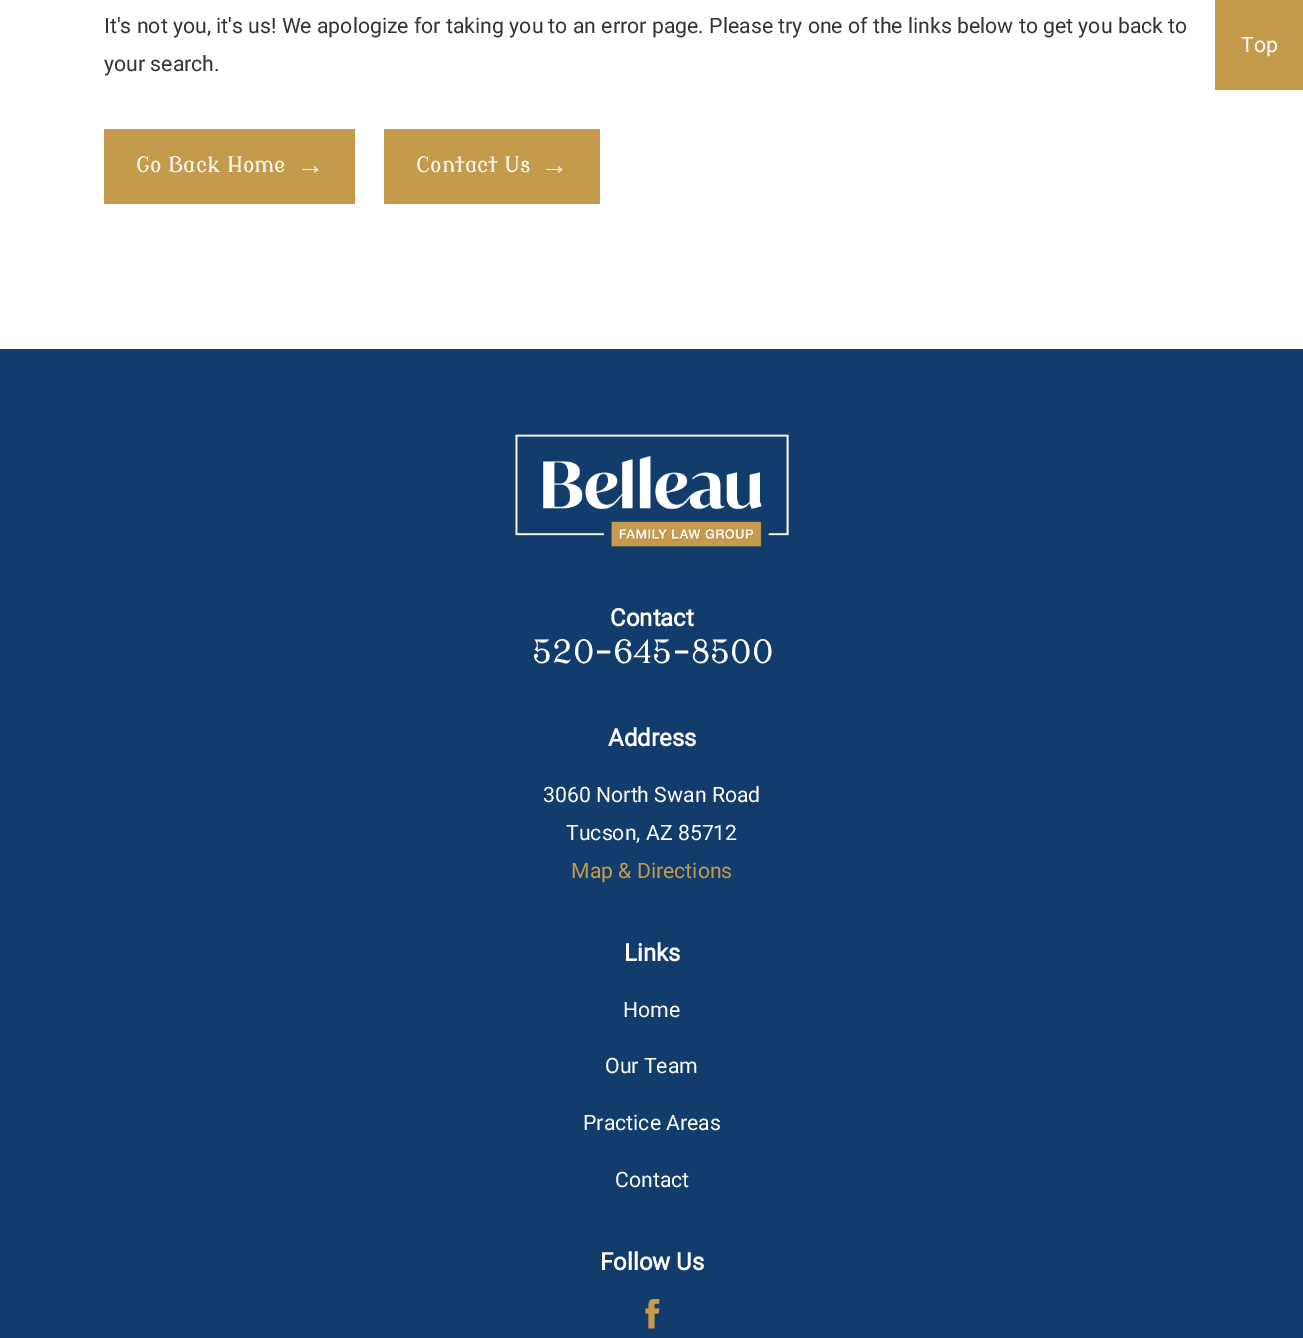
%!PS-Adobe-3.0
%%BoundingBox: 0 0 1303 1338
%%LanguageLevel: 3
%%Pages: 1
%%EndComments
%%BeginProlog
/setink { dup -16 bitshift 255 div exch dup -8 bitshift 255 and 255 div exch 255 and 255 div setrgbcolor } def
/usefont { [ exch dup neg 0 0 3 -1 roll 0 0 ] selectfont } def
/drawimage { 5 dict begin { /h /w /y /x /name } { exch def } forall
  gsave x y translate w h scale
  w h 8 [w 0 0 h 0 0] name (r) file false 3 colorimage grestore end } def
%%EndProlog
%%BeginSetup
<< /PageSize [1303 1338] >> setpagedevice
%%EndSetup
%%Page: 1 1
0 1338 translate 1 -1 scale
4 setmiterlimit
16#FFFFFF setink
0 0 1303 1338 rectfill
/Roboto-Regular 21.25 usefont
16#343434 setink
104 33 moveto (It's not you, it's us! We apologize for taking you to an error page. Please try one of the links below to get you back to) show
104 71 moveto (your search.) show
16#C49A4C setink
104 129 251 75 rectfill
/ModernAntiqua-Regular 21.25 usefont
16#FFFFFF setink
136 172 moveto (Go Back Home) show
/LiberationSerif-Bold 27 usefont
297 174 moveto (→) show
16#C49A4C setink
384 129 216 75 rectfill
/ModernAntiqua-Regular 21.25 usefont
16#FFFFFF setink
416 172 moveto (Contact Us) show
/LiberationSerif-Bold 27 usefont
541 174 moveto (→) show
16#C49A4C setink
1215 0 88 90 rectfill
/Roboto-Regular 21.25 usefont
16#FFFFFF setink
1241 52 moveto (Top) show
16#123C6B setink
0 349 1303 989 rectfill
(img1.raw) 515 434 274 113 drawimage
/Roboto-Bold 24 usefont
16#FFFFFF setink
610 626 moveto (Contact) show
/ModernAntiqua-Regular 32 usefont
532 663 moveto (520-645-8500) show
/Roboto-Bold 24 usefont
608 746 moveto (Address) show
/Roboto-Regular 21.25 usefont
543 802 moveto (3060 North Swan Road) show
566 840 moveto (Tucson, AZ 85712) show
16#C59A4C setink
571 878 moveto (Map & Directions) show
/Roboto-Bold 24 usefont
16#FFFFFF setink
624 961 moveto (Links) show
/Roboto-Regular 21.25 usefont
[
    [(Home) 623 1017]
    [(Our Team) 605 1073]
    [(Practice Areas) 583 1130]
    [(Contact) 615 1187]
] { aload pop moveto show } forall
/Roboto-Bold 24 usefont
600 1270 moveto (Follow Us) show
(img2.raw) 645 1299 15 30 drawimage
showpage
%%EOF
